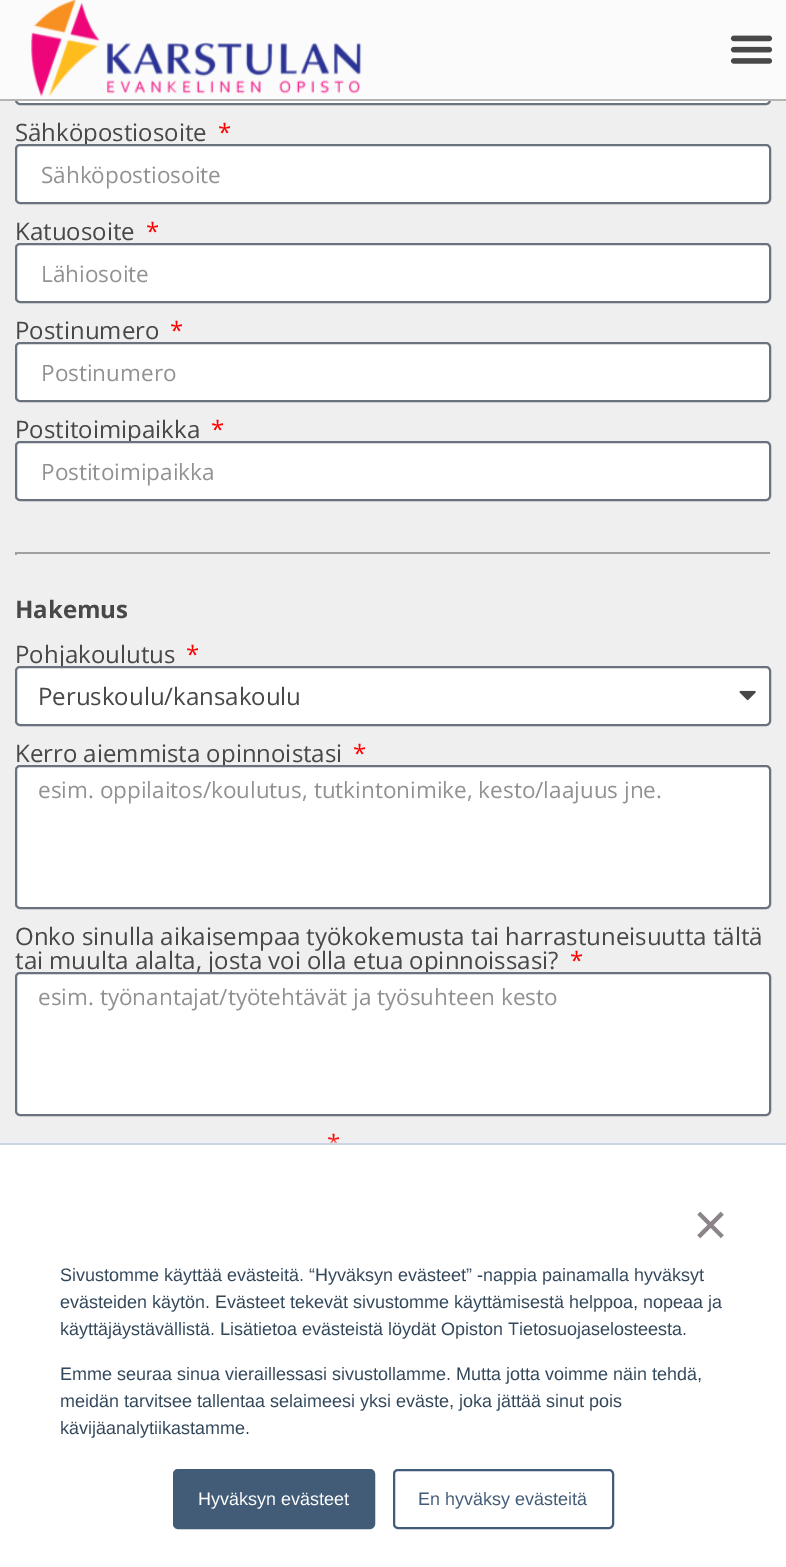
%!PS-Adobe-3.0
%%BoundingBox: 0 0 786 1567
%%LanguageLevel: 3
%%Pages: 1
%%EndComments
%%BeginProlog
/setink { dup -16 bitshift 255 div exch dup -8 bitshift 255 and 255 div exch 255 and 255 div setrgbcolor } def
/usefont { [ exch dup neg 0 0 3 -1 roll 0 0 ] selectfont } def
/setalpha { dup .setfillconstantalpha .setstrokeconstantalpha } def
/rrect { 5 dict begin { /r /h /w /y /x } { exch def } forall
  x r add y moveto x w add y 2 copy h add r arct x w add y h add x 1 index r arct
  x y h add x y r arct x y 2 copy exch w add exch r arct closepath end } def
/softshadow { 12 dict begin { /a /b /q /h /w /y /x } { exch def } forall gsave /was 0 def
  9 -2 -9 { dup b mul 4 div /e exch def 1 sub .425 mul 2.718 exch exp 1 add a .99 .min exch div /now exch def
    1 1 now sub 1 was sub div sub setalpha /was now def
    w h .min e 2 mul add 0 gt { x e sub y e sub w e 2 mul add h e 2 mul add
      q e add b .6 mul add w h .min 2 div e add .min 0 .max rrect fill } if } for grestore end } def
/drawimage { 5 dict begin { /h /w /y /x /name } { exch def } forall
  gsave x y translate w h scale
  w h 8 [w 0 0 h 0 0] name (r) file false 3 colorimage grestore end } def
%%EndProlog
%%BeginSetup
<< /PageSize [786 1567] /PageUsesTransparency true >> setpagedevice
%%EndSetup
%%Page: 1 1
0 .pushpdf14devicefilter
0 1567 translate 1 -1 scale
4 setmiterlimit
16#EFEFEF setink
0 0 786 1567 rectfill
16#FFFFFF setink
16 46 754 58 4 rrect gsave fill grestore
16#69727D setink
2 setlinewidth
stroke
16#FBFBFB setink
0 0 786 99 rectfill
16#B4B4B4 setink
0 99 786 2 rectfill
(img1.raw) 31 0 331 97 drawimage
(img2.raw) 730 35 43 29 drawimage
/OpenSans-Regular 24 usefont
16#484848 setink
15 141 moveto (Sähköpostiosoite) show
16#FF0000 setink
218 141 moveto (*) show
16#FFFFFF setink
16 145 754 58 4 rrect gsave fill grestore
16#69727D setink
stroke
/OpenSans-Regular 22.5 usefont
16#919191 setink
41 183 moveto (Sähköpostiosoite) show
/OpenSans-Regular 24 usefont
16#484848 setink
15 240 moveto (Katuosoite) show
16#FF0000 setink
146 240 moveto (*) show
16#FFFFFF setink
16 244 754 58 4 rrect gsave fill grestore
16#69727D setink
stroke
/OpenSans-Regular 22.5 usefont
16#919191 setink
41 282 moveto (Lähiosoite) show
/OpenSans-Regular 24 usefont
16#484848 setink
15 339 moveto (Postinumero) show
16#FF0000 setink
170 339 moveto (*) show
16#FFFFFF setink
16 343 754 58 4 rrect gsave fill grestore
16#69727D setink
stroke
/OpenSans-Regular 22.5 usefont
16#919191 setink
41 381 moveto (Postinumero) show
/OpenSans-Regular 24 usefont
16#484848 setink
15 438 moveto (Postitoimipaikka) show
16#FF0000 setink
211 438 moveto (*) show
16#FFFFFF setink
16 442 754 58 4 rrect gsave fill grestore
16#69727D setink
stroke
/OpenSans-Regular 22.5 usefont
16#919191 setink
41 480 moveto (Postitoimipaikka) show
[
    [15 552 756 2 16#9F9F9F]
    [770 552 1 3 16#EEEEEE]
    [15 552 2 3 16#9F9F9F]
] { aload pop setink rectfill } forall
/OpenSans-Bold 24 usefont
16#484848 setink
15 618 moveto (Hakemus) show
/OpenSans-Regular 24 usefont
15 663 moveto (Pohjakoulutus) show
16#FF0000 setink
186 663 moveto (*) show
16#FFFFFF setink
16 667 754 58 4 rrect gsave fill grestore
16#69727D setink
stroke
16#484848 setink
38 705 moveto (Peruskoulu/kansakoulu) show
(img3.raw) 739 690 17 11 drawimage
15 762 moveto (Kerro aiemmista opinnoistasi) show
16#FF0000 setink
353 762 moveto (*) show
16#FFFFFF setink
16 766 754 142 4 rrect gsave fill grestore
16#69727D setink
stroke
/OpenSans-Regular 22.5 usefont
16#919191 setink
38 798 moveto (esim. oppilaitos/koulutus, tutkintonimike, kesto/laajuus jne.) show
/OpenSans-Regular 24 usefont
16#484848 setink
15 945 moveto (Onko sinulla aikaisempaa työkokemusta tai harrastuneisuutta tältä) show
15 969 moveto (tai muulta alalta, josta voi olla etua opinnoissasi?) show
16#FF0000 setink
570 969 moveto (*) show
16#FFFFFF setink
16 973 754 142 4 rrect gsave fill grestore
16#69727D setink
stroke
/OpenSans-Regular 22.5 usefont
16#919191 setink
38 1005 moveto (esim. työnantajat/työtehtävät ja työsuhteen kesto) show
/OpenSans-Regular 24 usefont
16#FF0000 setink
327 1152 moveto (*) show
16#EAF0F6 setink
0 1142 786 424 0 2 1 softshadow
16#FFFFFF setink
0 1145 786 422 rectfill
16#CBD6E2 setink
0 1143 786 2 rectfill
/LiberationSans-Regular 60 usefont
16#8B8589 setink
693 1245 moveto (×) show
/LiberationSans-Regular 18 usefont
16#33475B setink
[
    [(Sivustomme käyttää evästeitä. “Hyväksyn evästeet” -nappia painamalla hyväksyt) 60 1281]
    [(evästeiden käytön. Evästeet tekevät sivustomme käyttämisestä helppoa, nopeaa ja) 60 1308]
    [(käyttäjäystävällistä. Lisätietoa evästeistä löydät Opiston Tietosuojaselosteesta.) 60 1335]
    [(Emme seuraa sinua vieraillessasi sivustollamme. Mutta jotta voimme näin tehdä,) 60 1380]
    [(meidän tarvitsee tallentaa selaimeesi yksi eväste, joka jättää sinut pois) 60 1407]
    [(kävijäanalytiikastamme.) 60 1434]
] { aload pop moveto show } forall
16#425B76 setink
174 1470 200 58 4 rrect gsave fill grestore
stroke
16#FFFFFF setink
198 1505 moveto (Hyväksyn evästeet) show
16#425B76 setink
394 1470 219 58 4 rrect stroke
418 1505 moveto (En hyväksy evästeitä) show
.poppdf14devicefilter showpage
%%EOF
